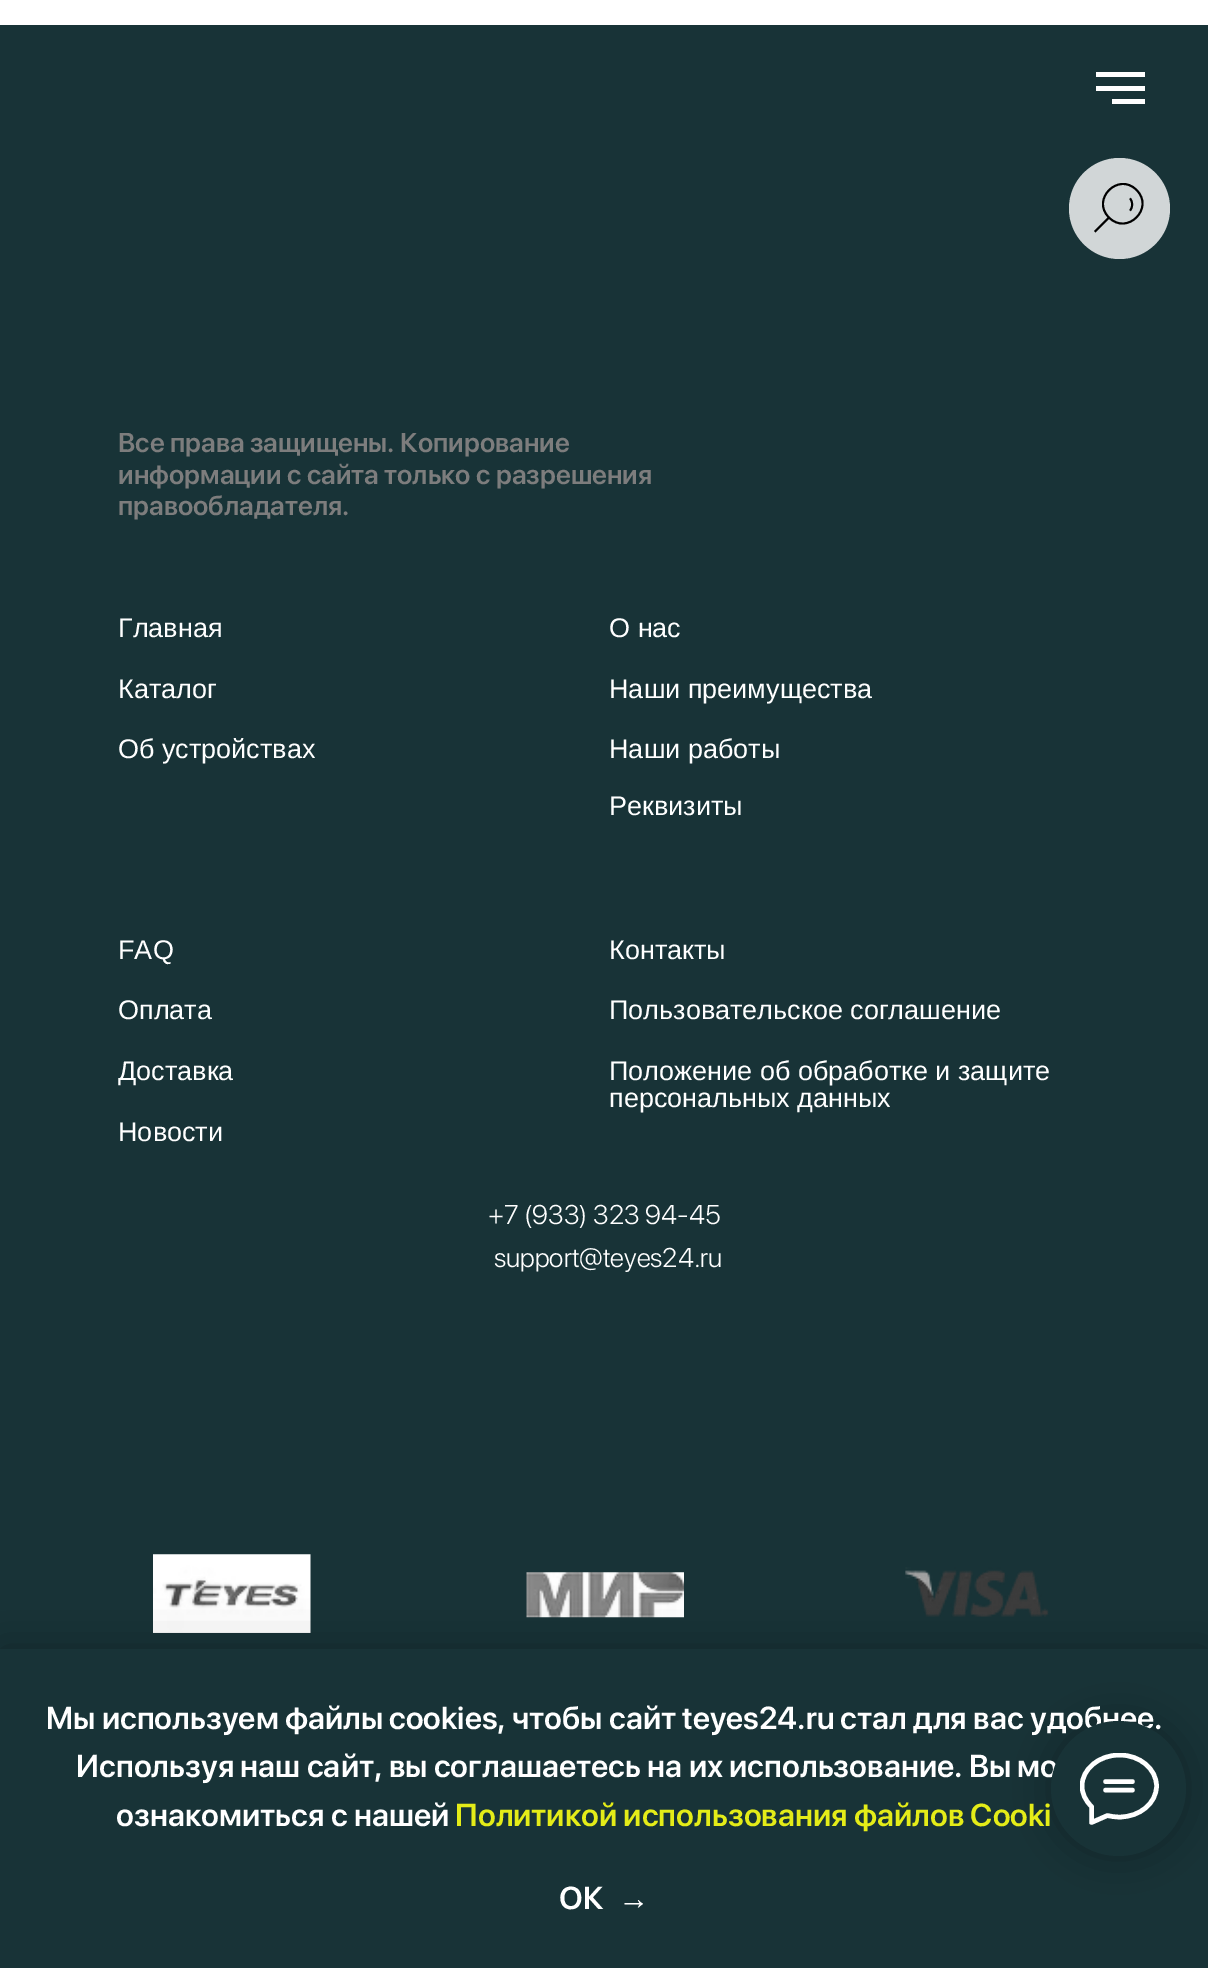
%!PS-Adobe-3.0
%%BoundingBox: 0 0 1208 1968
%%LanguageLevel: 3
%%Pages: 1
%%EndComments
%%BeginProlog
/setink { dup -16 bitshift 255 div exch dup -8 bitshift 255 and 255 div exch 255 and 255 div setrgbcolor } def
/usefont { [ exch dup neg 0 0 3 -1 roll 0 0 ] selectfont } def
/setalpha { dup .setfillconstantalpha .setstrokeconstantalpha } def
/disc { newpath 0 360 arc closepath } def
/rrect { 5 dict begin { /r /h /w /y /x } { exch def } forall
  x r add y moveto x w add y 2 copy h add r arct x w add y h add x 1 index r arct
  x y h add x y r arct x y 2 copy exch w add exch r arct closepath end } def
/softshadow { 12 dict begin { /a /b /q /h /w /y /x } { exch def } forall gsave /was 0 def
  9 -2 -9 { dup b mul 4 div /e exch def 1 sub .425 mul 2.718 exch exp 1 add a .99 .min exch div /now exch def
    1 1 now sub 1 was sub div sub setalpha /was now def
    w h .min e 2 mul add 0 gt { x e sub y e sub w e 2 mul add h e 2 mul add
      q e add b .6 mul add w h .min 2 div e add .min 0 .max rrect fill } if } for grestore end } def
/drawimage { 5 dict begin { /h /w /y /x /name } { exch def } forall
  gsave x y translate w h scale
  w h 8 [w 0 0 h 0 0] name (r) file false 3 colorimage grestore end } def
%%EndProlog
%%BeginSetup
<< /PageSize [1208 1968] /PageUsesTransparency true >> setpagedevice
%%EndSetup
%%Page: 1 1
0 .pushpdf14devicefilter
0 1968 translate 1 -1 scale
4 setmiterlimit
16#FFFFFF setink
0 0 1208 1968 rectfill
[
    [0 25 1208 1624 16#183337]
    [1096 72 49 5 16#FFFFFF]
    [1096 86 49 5 16#FFFFFF]
    [1112 99 33 5 16#FFFFFF]
] { aload pop setink rectfill } forall
(img1.raw) 153 1554 158 79 drawimage
(img2.raw) 526 1572 158 46 drawimage
(img3.raw) 905 1567 144 50 drawimage
0.8 setalpha
1119.5 208.5 50.5 disc fill
1 setalpha
16#000000 setink
1.9 setlinewidth
2 setlinecap
1108 218.5 moveto 1095.5 231 lineto stroke
0 setlinecap
1136.5 190 moveto 1155 208 1127 236 1109 217.5 curveto 1090.5 199.5 1118.5 171.5 1136.5 190 curveto closepath 1130 198.5 moveto 1133 202 1133 207 1130 210.5 curveto stroke
/SFProDisplay-SemiBold 27 usefont
16#7D7D7D setink
[
    [(Все права защищены. Копирование) 118 452]
    [(информации с сайта только с разрешения) 118 484]
    [(правообладателя.) 118 515]
] { aload pop moveto show } forall
/LiberationSans-Regular 27 usefont
16#FFFFFF setink
[
    [(Главная) 118 637]
    [(О нас) 609 637]
    [(Каталог) 118 698]
    [(Наши преимущества) 609 698]
    [(Об устройствах) 118 758]
    [(Наши работы) 609 758]
    [(Реквизиты) 609 815]
    [(FAQ) 118 959]
    [(Контакты) 609 959]
    [(Оплата) 118 1019]
    [(Пользовательское соглашение) 609 1019]
    [(Доставка) 118 1080]
    [(Положение об обработке и защите) 609 1080]
    [(персональных данных) 609 1107]
    [(Новости) 118 1141]
] { aload pop moveto show } forall
/SFProDisplay-Light 27 usefont
488 1224 moveto (+7 \(933\) 323 94-45) show
494 1267 moveto (support@teyes24.ru) show
16#000000 setink
0 1649 1208 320 0 22.5 0.3 softshadow
16#183337 setink
0 1649 1208 319 rectfill
16#000000 setink
1051 1721 135 135 67.5 22.5 0.3 softshadow
/SFProDisplay-SemiBold 31.5 usefont
16#FFFFFF setink
46 1729 moveto (Мы используем файлы cookies, чтобы сайт teyes24.ru стал для вас удобнее.) show
76 1777 moveto (Используя наш сайт, вы соглашаетесь на их использование. Вы мо) show
16#183337 setink
1118.5 1788.5 67.5 disc fill
gsave
1080 1753 79 72 rectclip
16#FFFFFF setink
4.5 setlinewidth
1 setlinecap
1 setlinejoin
1105.5 1781.5 moveto 1132.5 1781.5 lineto 1105.5 1790 moveto 1132.5 1790 lineto 1091 1806 moveto 1085.5 1800.5 1082 1793.5 1082 1786 curveto 1082 1769 1099 1755 1119.5 1755 curveto 1140 1755 1156.5 1769 1156.5 1786 curveto 1156.5 1803 1140 1817 1119.5 1817 curveto 1115 1817 1111 1816.5 1107.5 1815.5 curveto 1091.5 1822.5 lineto 1091.5 1806.5 lineto closepath stroke
grestore
16#FFFFFF setink
116 1826 moveto (ознакомиться с нашей) show
16#E4EC18 setink
455 1826 moveto (Политикой использования файлов Cooki) show
16#FFFFFF setink
559 1909 moveto (ОК) show
/LiberationSans-Bold 31.5 usefont
618 1909 moveto (→) show
.poppdf14devicefilter showpage
%%EOF
